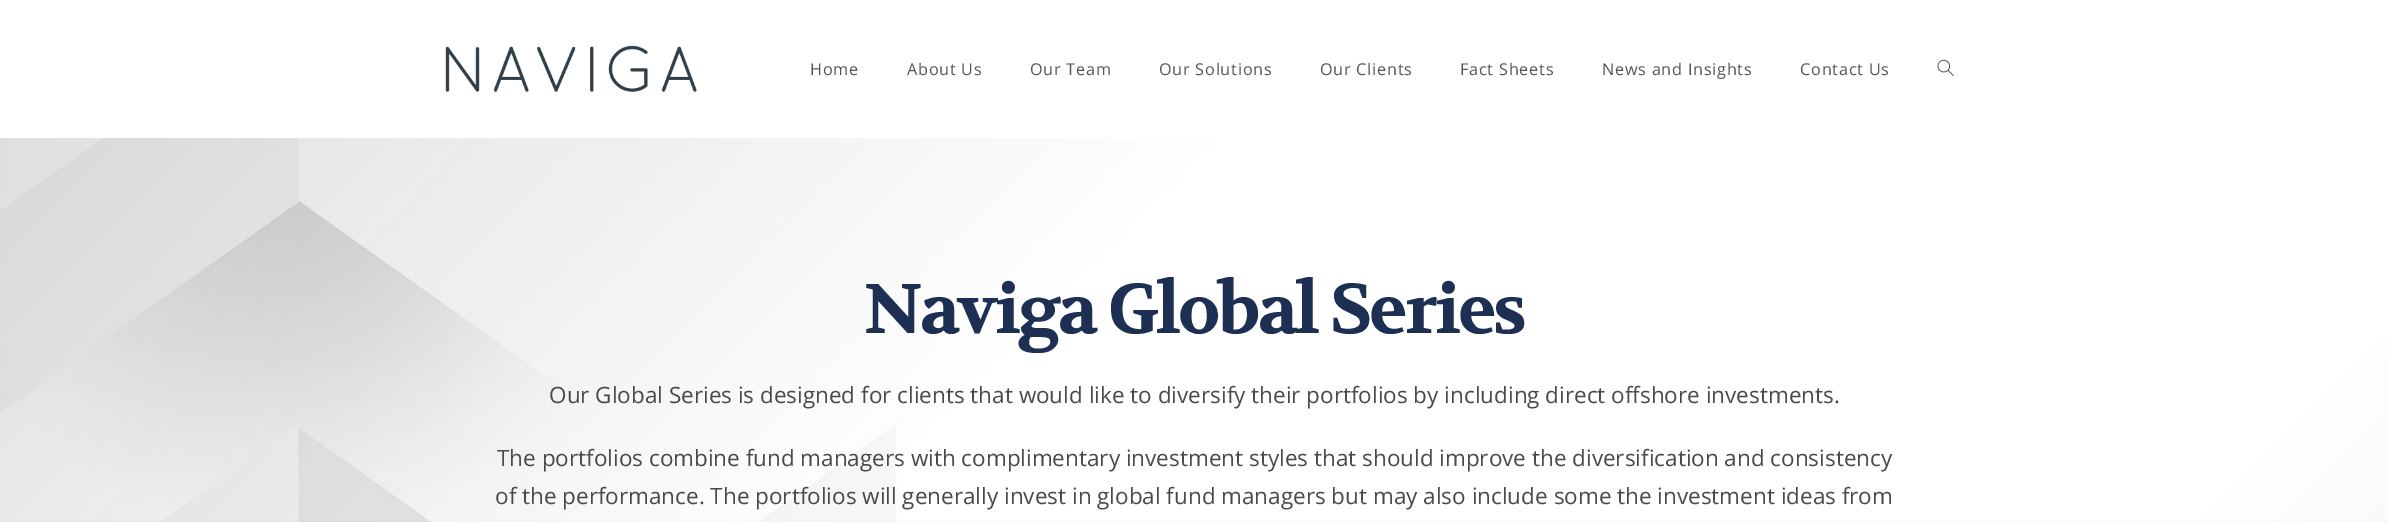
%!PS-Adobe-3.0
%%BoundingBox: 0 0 2388 522
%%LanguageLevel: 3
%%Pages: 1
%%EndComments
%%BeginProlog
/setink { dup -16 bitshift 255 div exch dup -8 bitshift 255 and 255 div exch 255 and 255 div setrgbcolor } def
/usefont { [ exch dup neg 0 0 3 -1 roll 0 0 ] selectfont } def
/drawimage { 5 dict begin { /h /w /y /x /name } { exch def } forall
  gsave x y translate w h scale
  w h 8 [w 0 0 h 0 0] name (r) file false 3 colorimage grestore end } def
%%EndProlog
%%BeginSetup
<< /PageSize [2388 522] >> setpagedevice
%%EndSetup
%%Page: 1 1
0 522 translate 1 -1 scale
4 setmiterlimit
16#FFFFFF setink
0 0 2388 522 rectfill
(img1.raw) 445 45 252 47 drawimage
/OpenSans-Regular 16.25 usefont
16#555555 setink
810 75 moveto 0.75 0 (Home) ashow
907 75 moveto 0.75 0 (About Us) ashow
1030 75 moveto 0.75 0 (Our Team) ashow
1159 75 moveto 0.75 0 (Our Solutions) ashow
1320 75 moveto 0.75 0 (Our Clients) ashow
1460 75 moveto 0.75 0 (Fact Sheets) ashow
1602 75 moveto 0.75 0 (News and Insights) ashow
1800 75 moveto 0.75 0 (Contact Us) ashow
(img2.raw) 1937 59 17 17 drawimage
(img3.raw) 0 138 2388 384 drawimage
/Volkhov-Bold 70 usefont
16#1D2F52 setink
864 333 moveto -2.75 0 (Naviga Global Series) ashow
/OpenSans-Regular 22.5 usefont
16#4A4A4A setink
[
    [(Our Global Series is designed for clients that would like to diversify their portfolios by including direct offshore investments.) 549 403]
    [(The portfolios combine fund managers with complimentary investment styles that should improve the diversification and consistency) 497 466]
    [(of the performance. The portfolios will generally invest in global fund managers but may also include some the investment ideas from) 495 504]
] { aload pop moveto show } forall
showpage
%%EOF
